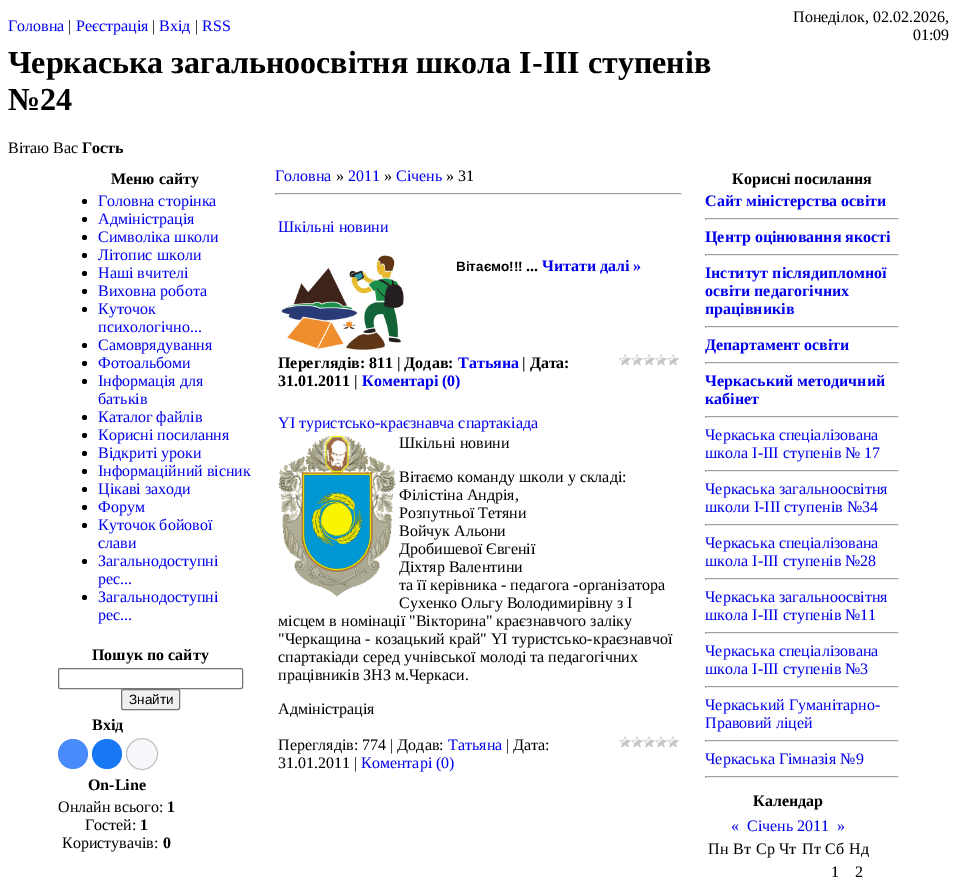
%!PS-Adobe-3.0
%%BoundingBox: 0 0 957 891
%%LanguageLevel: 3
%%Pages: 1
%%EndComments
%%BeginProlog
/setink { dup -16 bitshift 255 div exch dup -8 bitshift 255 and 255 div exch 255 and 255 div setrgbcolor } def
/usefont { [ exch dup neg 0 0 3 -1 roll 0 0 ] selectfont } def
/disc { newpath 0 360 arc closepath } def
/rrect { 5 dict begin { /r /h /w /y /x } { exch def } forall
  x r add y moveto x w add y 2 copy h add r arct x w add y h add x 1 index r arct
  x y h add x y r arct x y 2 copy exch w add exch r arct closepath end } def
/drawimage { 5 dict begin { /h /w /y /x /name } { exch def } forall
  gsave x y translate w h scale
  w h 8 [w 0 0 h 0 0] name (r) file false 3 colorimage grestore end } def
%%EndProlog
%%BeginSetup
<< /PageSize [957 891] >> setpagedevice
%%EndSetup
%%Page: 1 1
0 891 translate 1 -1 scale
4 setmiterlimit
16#FFFFFF setink
0 0 957 891 rectfill
/LiberationSerif-Regular 16 usefont
16#0000EE setink
8 31 moveto (Головна) show
16#000000 setink
68 31 moveto (|) show
16#0000EE setink
76 31 moveto (Реєстрація) show
16#000000 setink
152 31 moveto (|) show
16#0000EE setink
159 31 moveto (Вхід) show
16#000000 setink
195 31 moveto (|) show
16#0000EE setink
202 31 moveto (RSS) show
16#000000 setink
793 22 moveto (Понеділок, 02.02.2026,) show
913 40 moveto (01:09) show
/LiberationSerif-Bold 32 usefont
8 73 moveto (Черкаська загальноосвітня школа I-III ступенів) show
8 110 moveto (№24) show
/LiberationSerif-Regular 16 usefont
8 153 moveto (Вітаю Вас) show
/LiberationSerif-Bold 16 usefont
82 153 moveto (Гость) show
111 184 moveto (Меню сайту) show
84.5 201.5 2.5 disc fill
/LiberationSerif-Regular 16 usefont
16#0000EE setink
98 206 moveto (Головна сторінка) show
16#000000 setink
84.5 219.5 2.5 disc fill
16#0000EE setink
98 224 moveto (Адміністрація) show
16#000000 setink
84.5 237.5 2.5 disc fill
16#0000EE setink
98 242 moveto (Символіка школи) show
16#000000 setink
84.5 255.5 2.5 disc fill
16#0000EE setink
98 260 moveto (Літопис школи) show
16#000000 setink
84.5 273.5 2.5 disc fill
16#0000EE setink
98 278 moveto (Наші вчителі) show
16#000000 setink
84.5 291.5 2.5 disc fill
16#0000EE setink
98 296 moveto (Виховна робота) show
16#000000 setink
84.5 309.5 2.5 disc fill
16#0000EE setink
98 314 moveto (Куточок) show
98 332 moveto (психологічно...) show
16#000000 setink
84.5 345.5 2.5 disc fill
16#0000EE setink
98 350 moveto (Самоврядування) show
16#000000 setink
84.5 363.5 2.5 disc fill
16#0000EE setink
98 368 moveto (Фотоальбоми) show
16#000000 setink
84.5 381.5 2.5 disc fill
16#0000EE setink
98 386 moveto (Інформація для) show
98 404 moveto (батьків) show
16#000000 setink
84.5 417.5 2.5 disc fill
16#0000EE setink
98 422 moveto (Каталог файлів) show
16#000000 setink
84.5 435.5 2.5 disc fill
16#0000EE setink
98 440 moveto (Корисні посилання) show
16#000000 setink
84.5 453.5 2.5 disc fill
16#0000EE setink
98 458 moveto (Відкриті уроки) show
16#000000 setink
84.5 471.5 2.5 disc fill
16#0000EE setink
98 476 moveto (Інформаційний вісник) show
16#000000 setink
84.5 489.5 2.5 disc fill
16#0000EE setink
98 494 moveto (Цікаві заходи) show
16#000000 setink
84.5 507.5 2.5 disc fill
16#0000EE setink
98 512 moveto (Форум) show
16#000000 setink
84.5 525.5 2.5 disc fill
16#0000EE setink
98 530 moveto (Куточок бойової) show
98 548 moveto (слави) show
16#000000 setink
84.5 561.5 2.5 disc fill
16#0000EE setink
98 566 moveto (Загальнодоступні) show
98 584 moveto (рес...) show
16#000000 setink
84.5 597.5 2.5 disc fill
16#0000EE setink
98 602 moveto (Загальнодоступні) show
98 620 moveto (рес...) show
/LiberationSerif-Bold 16 usefont
16#000000 setink
92 660 moveto (Пошук по сайту) show
16#767676 setink
58.5 668.5 184 20 1.5 rrect stroke
16#EFEFEF setink
121.5 689.5 58 20 1.5 rrect gsave fill grestore
16#767676 setink
stroke
/LiberationSans-Regular 13.5 usefont
16#000000 setink
129 704 moveto (Знайти) show
/LiberationSerif-Bold 16 usefont
92 730 moveto (Вхід) show
16#498BFA setink
73 754 15 disc fill
16#1877F2 setink
107 754 15 disc fill
16#F8F8FC setink
142 754 15.5 disc gsave fill grestore
16#C4C4C4 setink
stroke
16#000000 setink
88 790 moveto (On-Line) show
/LiberationSerif-Regular 16 usefont
58 812 moveto (Онлайн всього:) show
/LiberationSerif-Bold 16 usefont
167 812 moveto (1) show
/LiberationSerif-Regular 16 usefont
85 830 moveto (Гостей:) show
/LiberationSerif-Bold 16 usefont
140 830 moveto (1) show
/LiberationSerif-Regular 16 usefont
62 848 moveto (Користувачів:) show
/LiberationSerif-Bold 16 usefont
163 848 moveto (0) show
/LiberationSerif-Regular 16 usefont
16#0000EE setink
275 181 moveto (Головна) show
16#000000 setink
336 181 moveto (») show
16#0000EE setink
348 181 moveto (2011) show
16#000000 setink
384 181 moveto (») show
16#0000EE setink
396 181 moveto (Січень) show
16#000000 setink
446 181 moveto (» 31) show
[
    [275 193 407 1 16#9F9F9F]
    [681 193 1 2 16#EEEEEE]
    [275 194 407 1 16#EEEEEE]
    [275 193 1 2 16#9F9F9F]
] { aload pop setink rectfill } forall
16#0000EE setink
278 232 moveto (Шкільні новини) show
(img1.raw) 280 255 124 95 drawimage
/LiberationSans-Bold 13.5 usefont
16#000000 setink
456 271 moveto (Вітаємо!!!) show
/LiberationSerif-Bold 16 usefont
526 271 moveto (...) show
16#0000EE setink
542 271 moveto (Читати далі ») show
16#000000 setink
278 368 moveto (Переглядів: 811 | Додав:) show
16#0000EE setink
458 368 moveto (Татьяна) show
16#000000 setink
522 368 moveto (| Дата:) show
(img2.raw) 619 354 60 12 drawimage
278 386 moveto (31.01.2011 |) show
16#0000EE setink
362 386 moveto (Коментарі \(0\)) show
/LiberationSerif-Regular 16 usefont
278 428 moveto (YI туристсько-краєзнавча спартакіада) show
(img3.raw) 278 435 118 162 drawimage
16#000000 setink
[
    [(Шкільні новини) 399 448]
    [(Вітаємо команду школи у складі:) 399 482]
    [(Філістіна Андрія,) 399 500]
    [(Розпутньої Тетяни) 399 518]
    [(Войчук Альони) 399 536]
    [(Дробишевої Євгенії) 399 554]
    [(Діхтяр Валентини) 399 572]
    [(та її керівника - педагога -організатора) 399 590]
    [(Сухенко Ольгу Володимирівну з І) 399 608]
    [(місцем в номінації "Вікторина" краєзнавчого заліку) 278 626]
    [("Черкащина - козацький край" YI туристсько-краєзнавчої) 278 644]
    [(спартакіади серед учнівської молоді та педагогічних) 278 662]
    [(працівників ЗНЗ м.Черкаси.) 278 680]
    [(Адміністрація) 278 714]
    [(Переглядів: 774 | Додав:) 278 750]
] { aload pop moveto show } forall
16#0000EE setink
448 750 moveto (Татьяна) show
16#000000 setink
506 750 moveto (| Дата:) show
(img2.raw) 619 736 60 12 drawimage
278 768 moveto (31.01.2011 |) show
16#0000EE setink
361 768 moveto (Коментарі \(0\)) show
/LiberationSerif-Bold 16 usefont
16#000000 setink
732 184 moveto (Корисні посилання) show
16#0000EE setink
705 206 moveto (Сайт міністерства освіти) show
[
    [705 218 194 1 16#9F9F9F]
    [898 218 1 2 16#EEEEEE]
    [705 219 194 1 16#EEEEEE]
    [705 218 1 2 16#9F9F9F]
] { aload pop setink rectfill } forall
16#0000EE setink
705 242 moveto (Центр оцінювання якості) show
[
    [705 254 194 1 16#9F9F9F]
    [898 254 1 2 16#EEEEEE]
    [705 255 194 1 16#EEEEEE]
    [705 254 1 2 16#9F9F9F]
] { aload pop setink rectfill } forall
16#0000EE setink
[
    [(Інститут післядипломної) 705 278]
    [(освіти педагогічних) 705 296]
    [(працівників) 705 314]
] { aload pop moveto show } forall
[
    [705 326 194 1 16#9F9F9F]
    [898 326 1 2 16#EEEEEE]
    [705 327 194 1 16#EEEEEE]
    [705 326 1 2 16#9F9F9F]
] { aload pop setink rectfill } forall
16#0000EE setink
705 350 moveto (Департамент освіти) show
[
    [705 362 194 1 16#9F9F9F]
    [898 362 1 2 16#EEEEEE]
    [705 363 194 1 16#EEEEEE]
    [705 362 1 2 16#9F9F9F]
] { aload pop setink rectfill } forall
16#0000EE setink
705 386 moveto (Черкаський методичний) show
705 404 moveto (кабінет) show
[
    [705 416 194 1 16#9F9F9F]
    [898 416 1 2 16#EEEEEE]
    [705 417 194 1 16#EEEEEE]
    [705 416 1 2 16#9F9F9F]
] { aload pop setink rectfill } forall
/LiberationSerif-Regular 16 usefont
16#0000EE setink
705 440 moveto (Черкаськa спеціалізованa) show
705 458 moveto (школа І-ІІІ ступенів № 17) show
[
    [705 470 194 1 16#9F9F9F]
    [898 470 1 2 16#EEEEEE]
    [705 471 194 1 16#EEEEEE]
    [705 470 1 2 16#9F9F9F]
] { aload pop setink rectfill } forall
16#0000EE setink
705 494 moveto (Черкаськa загальноосвітня) show
705 512 moveto (школи І-ІІІ ступенів №34) show
[
    [705 524 194 1 16#9F9F9F]
    [898 524 1 2 16#EEEEEE]
    [705 525 194 1 16#EEEEEE]
    [705 524 1 2 16#9F9F9F]
] { aload pop setink rectfill } forall
16#0000EE setink
705 548 moveto (Черкаськa спеціалізованa) show
705 566 moveto (школа І-ІІІ ступенів №28) show
[
    [705 578 194 1 16#9F9F9F]
    [898 578 1 2 16#EEEEEE]
    [705 579 194 1 16#EEEEEE]
    [705 578 1 2 16#9F9F9F]
] { aload pop setink rectfill } forall
16#0000EE setink
705 602 moveto (Черкаськa загальноосвітня) show
705 620 moveto (школа І-ІІІ ступенів №11) show
[
    [705 632 194 1 16#9F9F9F]
    [898 632 1 2 16#EEEEEE]
    [705 633 194 1 16#EEEEEE]
    [705 632 1 2 16#9F9F9F]
] { aload pop setink rectfill } forall
16#0000EE setink
705 656 moveto (Черкаськa спеціалізованa) show
705 674 moveto (школа І-ІІІ ступенів №3) show
[
    [705 686 194 1 16#9F9F9F]
    [898 686 1 2 16#EEEEEE]
    [705 687 194 1 16#EEEEEE]
    [705 686 1 2 16#9F9F9F]
] { aload pop setink rectfill } forall
16#0000EE setink
705 710 moveto (Черкаський Гуманітарно-) show
705 728 moveto (Правовий ліцей) show
[
    [705 740 194 1 16#9F9F9F]
    [898 740 1 2 16#EEEEEE]
    [705 741 194 1 16#EEEEEE]
    [705 740 1 2 16#9F9F9F]
] { aload pop setink rectfill } forall
16#0000EE setink
705 764 moveto (Черкаська Гімназія №9) show
[
    [705 776 194 1 16#9F9F9F]
    [898 776 1 2 16#EEEEEE]
    [705 777 194 1 16#EEEEEE]
    [705 776 1 2 16#9F9F9F]
] { aload pop setink rectfill } forall
/LiberationSerif-Bold 16 usefont
16#000000 setink
753 806 moveto (Календар) show
/LiberationSerif-Regular 16 usefont
16#0000EE setink
[
    [(«) 731 831]
    [(Січень 2011) 747 831]
    [(») 837 831]
] { aload pop moveto show } forall
16#000000 setink
[
    [(Пн) 708 854]
    [(Вт) 733 854]
    [(Ср) 756 854]
    [(Чт) 779 854]
    [(Пт) 802 854]
    [(Сб) 825 854]
    [(Нд) 849 854]
    [(1) 831 877]
    [(2) 855 877]
] { aload pop moveto show } forall
showpage
%%EOF
